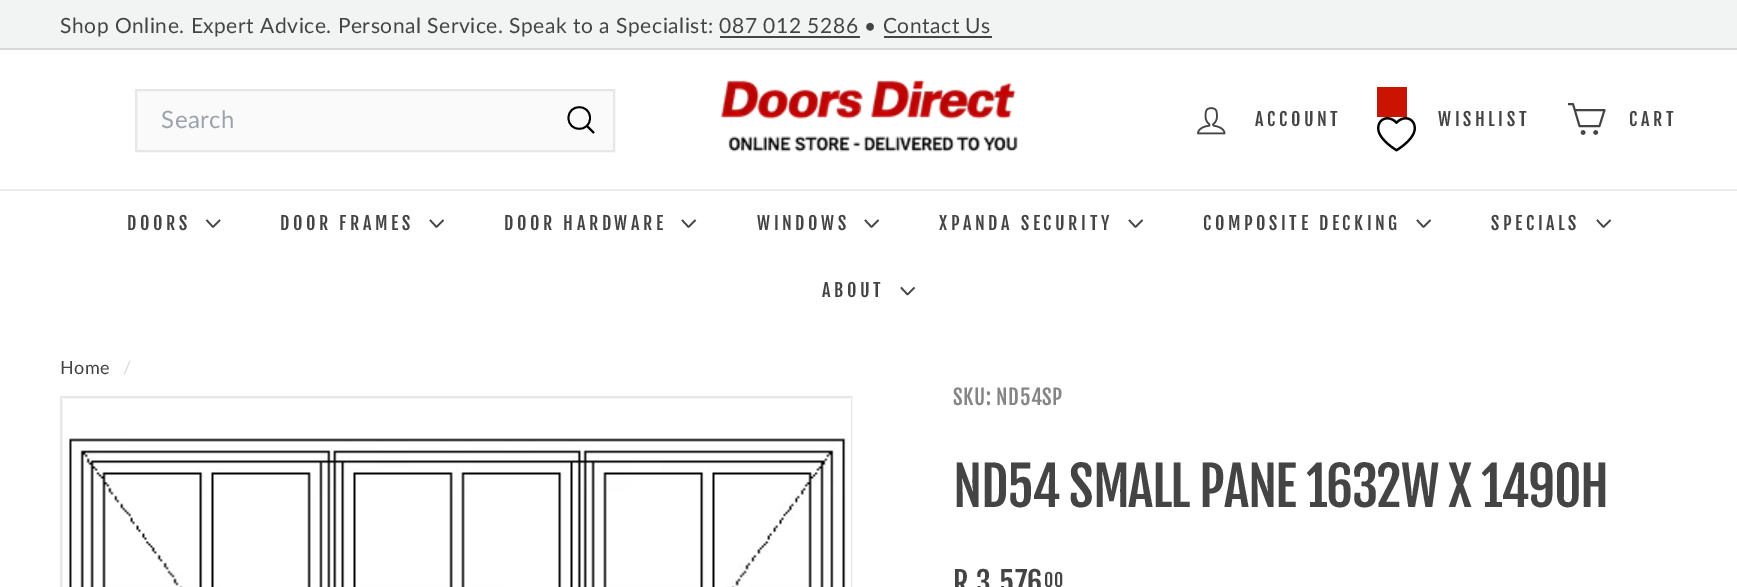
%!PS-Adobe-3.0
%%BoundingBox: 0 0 1737 587
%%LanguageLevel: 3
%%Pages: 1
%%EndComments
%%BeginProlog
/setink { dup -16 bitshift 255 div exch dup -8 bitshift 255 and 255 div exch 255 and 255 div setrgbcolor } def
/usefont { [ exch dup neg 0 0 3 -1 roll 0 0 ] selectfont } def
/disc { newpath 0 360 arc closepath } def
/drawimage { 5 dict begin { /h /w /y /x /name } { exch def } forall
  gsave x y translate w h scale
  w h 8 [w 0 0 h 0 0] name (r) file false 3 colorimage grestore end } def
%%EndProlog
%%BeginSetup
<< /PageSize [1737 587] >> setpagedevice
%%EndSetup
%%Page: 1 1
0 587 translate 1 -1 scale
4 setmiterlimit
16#FFFFFF setink
0 0 1737 587 rectfill
16#F2F4F4 setink
0 0 1737 48 rectfill
/Lato-Regular 21 usefont
16#444444 setink
60 33 moveto 0.52 0 (Shop Online. Expert Advice. Personal Service. Speak to a Specialist: 087 012 5286 • Contact Us) ashow
[
    [720 36 140 2 16#444444]
    [884 36 108 2 16#444444]
    [0 48 1737 2 16#D8DADA]
] { aload pop setink rectfill } forall
16#FAFAFA setink
136 90 moveto 614 90 lineto 614 151 lineto 136 151 lineto closepath gsave fill grestore
16#E7E7E7 setink
2 setlinewidth
stroke
/Lato-Regular 24 usefont
16#9CA3AF setink
161 128 moveto 0.5 0 (Search) ashow
16#000000 setink
1.8 setlinewidth
1 setlinejoin
590 118 moveto 590 132.5 568.5 132.5 568.5 118 curveto 568.5 103.5 590 103.5 590 118 curveto 594 133 moveto 587 126 lineto stroke
(img1.raw) 721 80 297 72 drawimage
(img2.raw) 1197 107 29 28 drawimage
/FjallaOne-Regular 18 usefont
16#444444 setink
1255 126 moveto 3.6 0 (ACCOUNT) ashow
16#CA1400 setink
1377 87 30 30 rectfill
(img3.raw) 1377 117 39 35 drawimage
16#444444 setink
1438 126 moveto 3.6 0 (WISHLIST) ashow
1.9 setlinewidth
1575 110 moveto 1604.5 110 lineto 1599.5 126 lineto 1579.5 126 lineto 1573 104 lineto 1568 104 lineto stroke
0 setlinejoin
1583.1 132.5 1.3 disc stroke
1595.7 132.5 1.3 disc gsave fill grestore
stroke
1629 126 moveto 3.6 0 (CART) ashow
16#ECECEC setink
0 189 1737 2 rectfill
16#444444 setink
127 230 moveto 3.6 0 (DOORS) ashow
1.6 setlinewidth
1 setlinejoin
206.5 220 moveto 213 227 lineto 220 220 lineto stroke
280 230 moveto 3.6 0 (DOOR FRAMES) ashow
430 220 moveto 436.5 227 lineto 443.5 220 lineto stroke
504 230 moveto 3.6 0 (DOOR HARDWARE) ashow
682 220 moveto 688.5 227 lineto 695.5 220 lineto stroke
757 230 moveto 3.6 0 (WINDOWS) ashow
865 220 moveto 871.5 227 lineto 878.5 220 lineto stroke
939 230 moveto 3.6 0 (XPANDA SECURITY) ashow
1129 220 moveto 1135.5 227 lineto 1142.5 220 lineto stroke
1203 230 moveto 3.6 0 (COMPOSITE DECKING) ashow
1417 220 moveto 1423.5 227 lineto 1430.5 220 lineto stroke
1491 230 moveto 3.6 0 (SPECIALS) ashow
1597 220 moveto 1603.5 227 lineto 1610.5 220 lineto stroke
822 297 moveto 3.6 0 (ABOUT) ashow
901 287.5 moveto 907.5 294.5 lineto 914.5 287.5 lineto stroke
/Lato-Regular 18 usefont
60 374 moveto 0.52 0 (Home) ashow
16#DADADA setink
123 374 moveto 0.52 0 (/) ashow
16#E7E7E7 setink
2 setlinewidth
0 setlinejoin
61 397 790 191 rectstroke
16#FFFFFF setink
850 398 1 189 rectfill
(img4.raw) 69 438 777 149 drawimage
/FjallaOne-Regular 21 usefont
16#858585 setink
953 405 moveto 0.52 0 (SKU: ND54SP) ashow
/FjallaOne-Regular 53.5 usefont
16#444444 setink
953 507 moveto -1.35 0 (ND54 SMALL PANE 1632W X 1490H) ashow
/FjallaOne-Regular 30 usefont
953 594 moveto 0.52 0 (R 3,576) ashow
/FjallaOne-Regular 18 usefont
1044 587 moveto 0.52 0 (00) ashow
showpage
%%EOF
